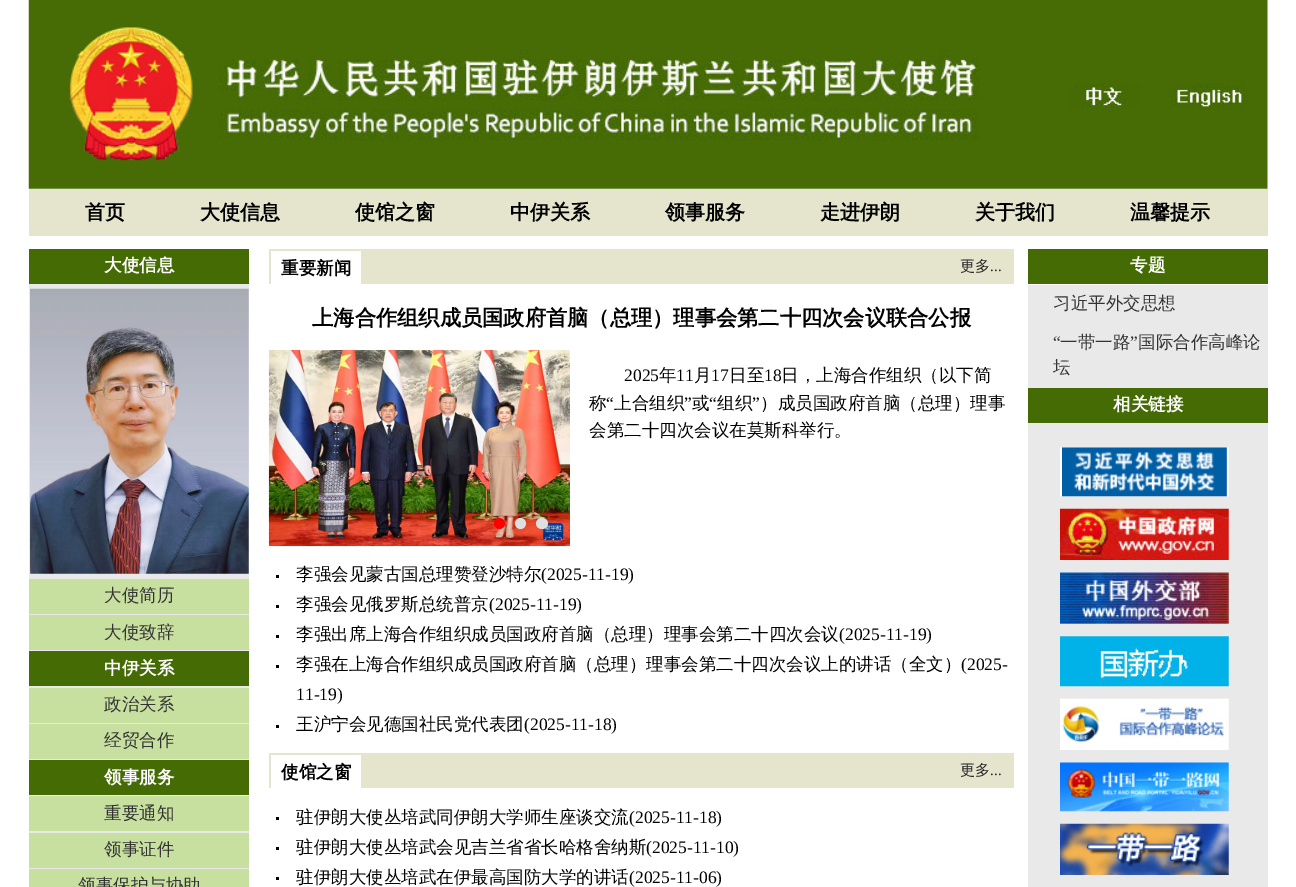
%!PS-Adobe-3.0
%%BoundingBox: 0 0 1296 887
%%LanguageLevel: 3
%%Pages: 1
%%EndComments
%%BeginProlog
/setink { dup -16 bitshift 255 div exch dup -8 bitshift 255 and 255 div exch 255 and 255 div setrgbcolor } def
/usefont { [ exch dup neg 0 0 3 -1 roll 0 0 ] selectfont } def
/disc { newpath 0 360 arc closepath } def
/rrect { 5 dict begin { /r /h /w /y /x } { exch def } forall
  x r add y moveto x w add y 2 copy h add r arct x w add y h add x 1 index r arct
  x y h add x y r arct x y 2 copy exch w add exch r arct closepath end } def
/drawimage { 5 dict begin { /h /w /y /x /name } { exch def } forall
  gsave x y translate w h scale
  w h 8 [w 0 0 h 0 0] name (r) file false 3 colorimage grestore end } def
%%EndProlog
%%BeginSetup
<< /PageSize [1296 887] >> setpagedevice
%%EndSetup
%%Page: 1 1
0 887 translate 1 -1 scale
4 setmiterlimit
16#FFFFFF setink
0 0 1296 887 rectfill
(img1.raw) 28 0 1240 189 drawimage
16#E5E5CD setink
29 189 1239 47 rectfill
/WenQuanYiZenHei-Bold 20 usefont
16#000000 setink
[
    [(首页) 85 219]
    [(大使信息) 200 219]
    [(使馆之窗) 355 219]
    [(中伊关系) 510 219]
    [(领事服务) 665 219]
    [(走进伊朗) 820 219]
    [(关于我们) 975 219]
    [(温馨提示) 1130 219]
] { aload pop moveto show } forall
16#E9E9E9 setink
29 284 220 585 rectfill
16#456B04 setink
29 249 220 35 rectfill
/WenQuanYiZenHei-Bold 17.5 usefont
16#FFFFFF setink
104 271 moveto (大使信息) show
(img2.raw) 30 288 219 286 drawimage
16#C7DF9F setink
29 579 220 35 rectfill
/WenQuanYiZenHei-Medium 17.5 usefont
16#333333 setink
104 601 moveto (大使简历) show
16#C7DF9F setink
29 615 220 35 rectfill
16#333333 setink
104 638 moveto (大使致辞) show
16#456B04 setink
29 651 220 35 rectfill
/WenQuanYiZenHei-Bold 17.5 usefont
16#FFFFFF setink
104 674 moveto (中伊关系) show
16#C7DF9F setink
29 688 220 35 rectfill
/WenQuanYiZenHei-Medium 17.5 usefont
16#333333 setink
104 710 moveto (政治关系) show
16#C7DF9F setink
29 724 220 35 rectfill
16#333333 setink
104 746 moveto (经贸合作) show
16#456B04 setink
29 760 220 35 rectfill
/WenQuanYiZenHei-Bold 17.5 usefont
16#FFFFFF setink
104 783 moveto (领事服务) show
16#C7DF9F setink
29 796 220 35 rectfill
/WenQuanYiZenHei-Medium 17.5 usefont
16#333333 setink
104 819 moveto (重要通知) show
16#C7DF9F setink
29 833 220 35 rectfill
16#333333 setink
104 855 moveto (领事证件) show
16#C7DF9F setink
29 869 220 18 rectfill
16#333333 setink
78 891 moveto (领事保护与协助) show
16#E5E5CD setink
269 249 745 35 rectfill
16#FFFFFF setink
271 251 90 33 rectfill
/WenQuanYiZenHei-Bold 17.5 usefont
16#000000 setink
281 274 moveto (重要新闻) show
/WenQuanYiZenHei-Medium 15 usefont
16#282828 setink
960 271 moveto (更多) show
/LiberationSerif-Regular 15 usefont
990 271 moveto (...) show
/WenQuanYiZenHei-Bold 21.25 usefont
16#000000 setink
312 325 moveto (上海合作组织成员国政府首脑（总理）理事会第二十四次会议联合公报) show
(img3.raw) 268 350 302 197 drawimage
16#FF0000 setink
499.5 523.5 5.5 disc fill
16#DFDFDF setink
520.5 523.5 5.5 disc fill
536 518 12 11 5.5 rrect fill
/LiberationSerif-Regular 17.5 usefont
16#000000 setink
624 381 moveto (2025) show
/WenQuanYiZenHei-Medium 17.5 usefont
659 381 moveto (年) show
/LiberationSerif-Regular 17.5 usefont
676 381 moveto (11) show
/WenQuanYiZenHei-Medium 17.5 usefont
694 381 moveto (月) show
/LiberationSerif-Regular 17.5 usefont
711 381 moveto (17) show
/WenQuanYiZenHei-Medium 17.5 usefont
729 381 moveto (日至) show
/LiberationSerif-Regular 17.5 usefont
764 381 moveto (18) show
/WenQuanYiZenHei-Medium 17.5 usefont
781 381 moveto (日，上海合作组织（以下简) show
589 409 moveto (称) show
/LiberationSerif-Regular 17.5 usefont
606 409 moveto (“) show
/WenQuanYiZenHei-Medium 17.5 usefont
614 409 moveto (上合组织) show
/LiberationSerif-Regular 17.5 usefont
684 409 moveto (”) show
/WenQuanYiZenHei-Medium 17.5 usefont
692 409 moveto (或) show
/LiberationSerif-Regular 17.5 usefont
709 409 moveto (“) show
/WenQuanYiZenHei-Medium 17.5 usefont
717 409 moveto (组织) show
/LiberationSerif-Regular 17.5 usefont
752 409 moveto (”) show
/WenQuanYiZenHei-Medium 17.5 usefont
760 409 moveto (）成员国政府首脑（总理）理事) show
589 436 moveto (会第二十四次会议在莫斯科举行。) show
276 575 3 3 rectfill
296 580 moveto (李强会见蒙古国总理赞登沙特尔) show
/LiberationSerif-Regular 17.5 usefont
541 580 moveto (\(2025-11-19\)) show
276 605 3 3 rectfill
/WenQuanYiZenHei-Medium 17.5 usefont
296 610 moveto (李强会见俄罗斯总统普京) show
/LiberationSerif-Regular 17.5 usefont
489 610 moveto (\(2025-11-19\)) show
276 635 3 3 rectfill
/WenQuanYiZenHei-Medium 17.5 usefont
296 640 moveto (李强出席上海合作组织成员国政府首脑（总理）理事会第二十四次会议) show
/LiberationSerif-Regular 17.5 usefont
839 640 moveto (\(2025-11-19\)) show
276 665 3 3 rectfill
/WenQuanYiZenHei-Medium 17.5 usefont
296 670 moveto (李强在上海合作组织成员国政府首脑（总理）理事会第二十四次会议上的讲话（全文）) show
/LiberationSerif-Regular 17.5 usefont
961 670 moveto (\(2025-) show
296 700 moveto (11-19\)) show
276 725 3 3 rectfill
/WenQuanYiZenHei-Medium 17.5 usefont
296 730 moveto (王沪宁会见德国社民党代表团) show
/LiberationSerif-Regular 17.5 usefont
524 730 moveto (\(2025-11-18\)) show
16#E5E5CD setink
269 753 745 35 rectfill
16#FFFFFF setink
271 755 90 33 rectfill
/WenQuanYiZenHei-Bold 17.5 usefont
16#000000 setink
281 778 moveto (使馆之窗) show
/WenQuanYiZenHei-Medium 15 usefont
16#282828 setink
960 775 moveto (更多) show
/LiberationSerif-Regular 15 usefont
990 775 moveto (...) show
16#000000 setink
276 817 3 3 rectfill
/WenQuanYiZenHei-Medium 17.5 usefont
296 823 moveto (驻伊朗大使丛培武同伊朗大学师生座谈交流) show
/LiberationSerif-Regular 17.5 usefont
629 823 moveto (\(2025-11-18\)) show
276 847 3 3 rectfill
/WenQuanYiZenHei-Medium 17.5 usefont
296 853 moveto (驻伊朗大使丛培武会见吉兰省省长哈格舍纳斯) show
/LiberationSerif-Regular 17.5 usefont
646 853 moveto (\(2025-11-10\)) show
276 877 3 3 rectfill
/WenQuanYiZenHei-Medium 17.5 usefont
296 883 moveto (驻伊朗大使丛培武在伊最高国防大学的讲话) show
/LiberationSerif-Regular 17.5 usefont
629 883 moveto (\(2025-11-06\)) show
16#E9E9E9 setink
1028 285 240 602 rectfill
16#456B04 setink
1028 249 240 35 rectfill
/WenQuanYiZenHei-Bold 17.5 usefont
16#FFFFFF setink
1130 271 moveto (专题) show
/WenQuanYiZenHei-Medium 17.5 usefont
16#333333 setink
1053 309 moveto (习近平外交思想) show
/LiberationSerif-Regular 17.5 usefont
1053 348 moveto (“) show
/WenQuanYiZenHei-Medium 17.5 usefont
1060 348 moveto (一带一路) show
/LiberationSerif-Regular 17.5 usefont
1130 348 moveto (”) show
/WenQuanYiZenHei-Medium 17.5 usefont
1138 348 moveto (国际合作高峰论) show
1053 373 moveto (坛) show
16#456B04 setink
1028 388 240 35 rectfill
/WenQuanYiZenHei-Bold 17.5 usefont
16#FFFFFF setink
1113 410 moveto (相关链接) show
(img4.raw) 1060 447 169 50 drawimage
(img5.raw) 1060 508 169 52 drawimage
(img6.raw) 1060 572 169 52 drawimage
(img7.raw) 1060 636 169 51 drawimage
(img8.raw) 1060 698 169 52 drawimage
(img9.raw) 1060 762 169 50 drawimage
(img10.raw) 1060 823 169 52 drawimage
showpage
%%EOF
